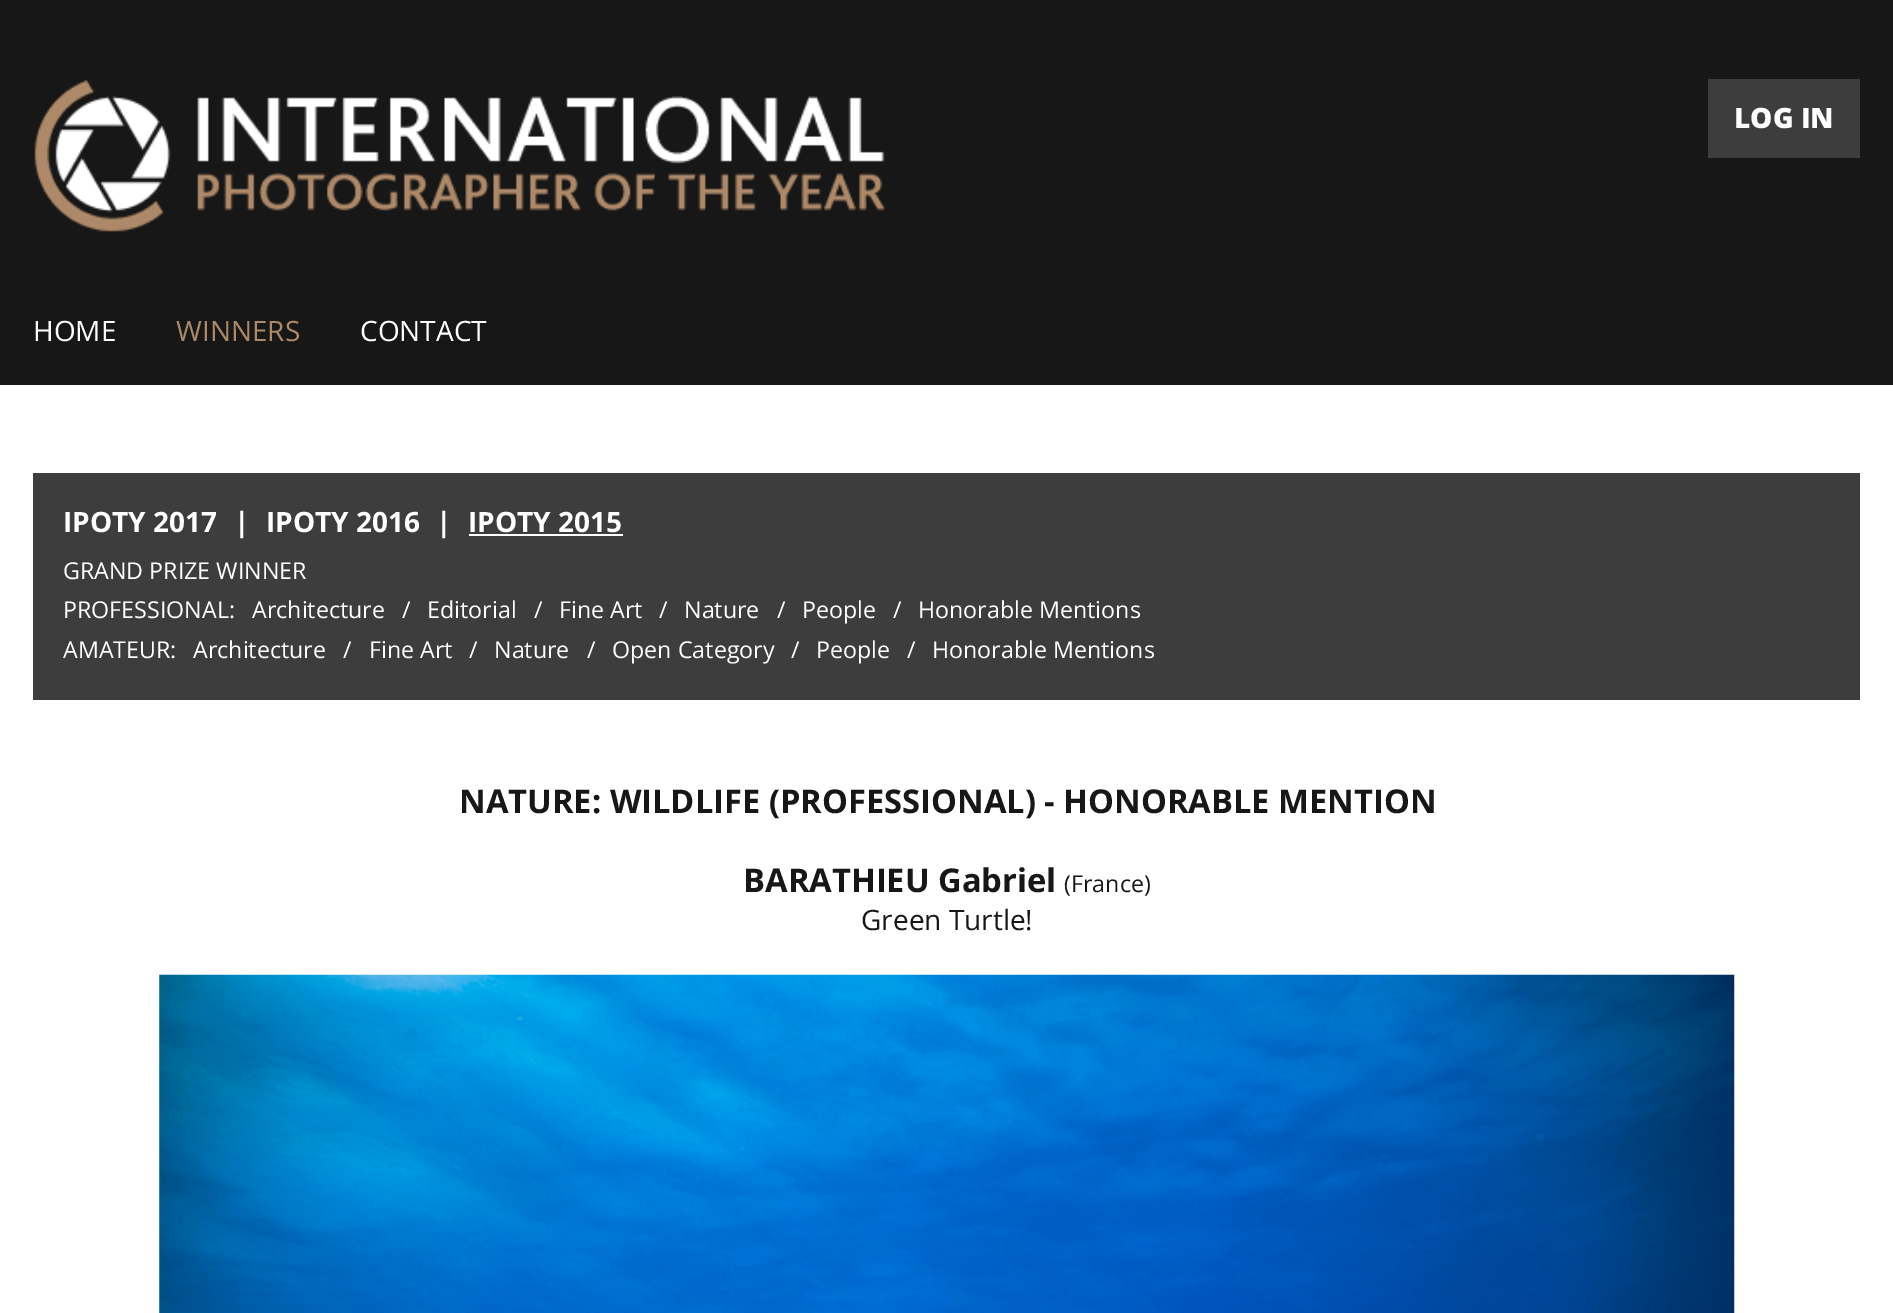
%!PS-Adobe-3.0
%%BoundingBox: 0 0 1893 1313
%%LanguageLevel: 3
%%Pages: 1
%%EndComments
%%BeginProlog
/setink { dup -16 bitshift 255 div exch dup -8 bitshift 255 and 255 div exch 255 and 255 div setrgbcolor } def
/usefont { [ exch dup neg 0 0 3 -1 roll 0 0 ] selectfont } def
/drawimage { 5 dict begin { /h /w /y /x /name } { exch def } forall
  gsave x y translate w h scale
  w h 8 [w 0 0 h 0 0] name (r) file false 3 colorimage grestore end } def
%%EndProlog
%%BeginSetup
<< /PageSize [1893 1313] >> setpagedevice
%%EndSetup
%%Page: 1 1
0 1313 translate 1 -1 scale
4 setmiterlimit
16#FFFFFF setink
0 0 1893 1313 rectfill
16#171717 setink
0 0 1893 385 rectfill
(img1.raw) 34 80 852 152 drawimage
16#3D3D3D setink
1708 79 152 79 rectfill
/OpenSans-ExtraBold 28 usefont
16#FFFFFF setink
1734 128 moveto (LOG IN) show
/OpenSans-Regular 28 usefont
33 341 moveto (HOME) show
16#AE8969 setink
176 341 moveto (WINNERS) show
16#FFFFFF setink
360 341 moveto (CONTACT) show
16#3D3D3D setink
33 473 1827 227 rectfill
/OpenSans-Bold 28 usefont
16#FFFFFF setink
[
    [(IPOTY 2017) 63 532]
    [(|) 234 532]
    [(IPOTY 2016) 266 532]
    [(|) 436 532]
    [(IPOTY 2015) 468 532]
] { aload pop moveto show } forall
469 534 154 2 rectfill
/OpenSans-Regular 23.25 usefont
[
    [(GRAND PRIZE WINNER) 63 579]
    [(PROFESSIONAL:) 63 618]
    [(Architecture) 252 618]
    [(/) 402 618]
    [(Editorial) 427 618]
    [(/) 534 618]
    [(Fine Art) 559 618]
    [(/) 659 618]
    [(Nature) 684 618]
    [(/) 777 618]
    [(People) 802 618]
    [(/) 893 618]
    [(Honorable Mentions) 918 618]
    [(AMATEUR:) 63 658]
    [(Architecture) 193 658]
    [(/) 343 658]
    [(Fine Art) 369 658]
    [(/) 469 658]
    [(Nature) 494 658]
    [(/) 587 658]
    [(Open Category) 612 658]
    [(/) 791 658]
    [(People) 816 658]
    [(/) 907 658]
    [(Honorable Mentions) 932 658]
] { aload pop moveto show } forall
/OpenSans-Bold 32.7 usefont
16#171717 setink
459 813 moveto (NATURE: WILDLIFE \(PROFESSIONAL\) - HONORABLE MENTION) show
743 892 moveto (BARATHIEU Gabriel) show
/OpenSans-Regular 23.25 usefont
1064 892 moveto (\(France\)) show
/OpenSans-Regular 28 usefont
861 930 moveto (Green Turtle!) show
(img2.raw) 159 974 1576 339 drawimage
showpage
%%EOF
